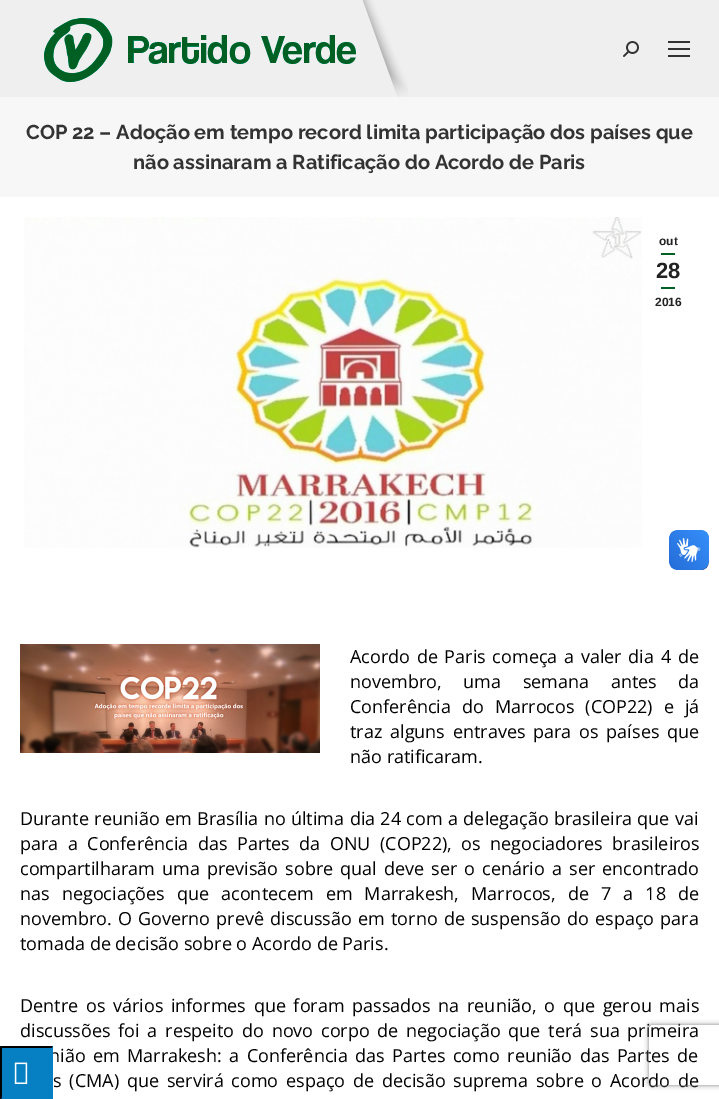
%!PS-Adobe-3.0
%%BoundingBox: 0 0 719 1099
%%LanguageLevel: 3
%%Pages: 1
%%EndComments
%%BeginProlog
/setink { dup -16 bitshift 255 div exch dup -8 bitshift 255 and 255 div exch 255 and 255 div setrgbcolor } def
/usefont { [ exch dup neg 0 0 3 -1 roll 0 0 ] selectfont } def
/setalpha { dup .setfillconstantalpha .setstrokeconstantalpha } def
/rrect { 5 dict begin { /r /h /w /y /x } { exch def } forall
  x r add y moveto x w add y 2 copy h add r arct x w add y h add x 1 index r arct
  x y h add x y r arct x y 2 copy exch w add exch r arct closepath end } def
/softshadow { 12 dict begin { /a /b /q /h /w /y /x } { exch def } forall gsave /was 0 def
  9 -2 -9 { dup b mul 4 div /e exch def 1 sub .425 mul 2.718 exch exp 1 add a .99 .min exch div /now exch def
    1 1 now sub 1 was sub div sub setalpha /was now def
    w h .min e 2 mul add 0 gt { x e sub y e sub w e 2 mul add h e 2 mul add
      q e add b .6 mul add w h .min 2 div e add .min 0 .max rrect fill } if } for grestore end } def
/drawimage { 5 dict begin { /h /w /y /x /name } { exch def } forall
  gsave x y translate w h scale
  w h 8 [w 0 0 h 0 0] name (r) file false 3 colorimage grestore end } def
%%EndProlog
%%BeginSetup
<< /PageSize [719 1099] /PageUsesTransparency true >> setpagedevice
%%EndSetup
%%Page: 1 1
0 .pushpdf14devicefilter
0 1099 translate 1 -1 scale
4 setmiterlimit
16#FFFFFF setink
0 0 719 1099 rectfill
16#EFEFEF setink
0 0 719 97 rectfill
(img1.raw) 44 0 364 97 drawimage
(img2.raw) 623 41 16 16 drawimage
[
    [668 41 22 2 16#333333]
    [668 48 22 2 16#333333]
    [668 55 22 2 16#333333]
    [0 97 719 100 16#F7F7F7]
] { aload pop setink rectfill } forall
/Raleway-Bold 20 usefont
16#333333 setink
26 139 moveto (COP 22 – Adoção em tempo record limita participação dos países que) show
133 169 moveto (não assinaram a Ratificação do Acordo de Paris) show
(img3.raw) 24 217 618 331 drawimage
/LiberationSans-Bold 12 usefont
16#222222 setink
659 245 moveto (out) show
16#016124 setink
661 253 14 2 rectfill
/LiberationSans-Bold 22 usefont
16#222222 setink
656 278 moveto (28) show
16#016124 setink
661 287 14 2 rectfill
/LiberationSans-Bold 12 usefont
16#222222 setink
655 306 moveto (2016) show
(img4.raw) 20 644 300 109 drawimage
/OpenSans-Regular 18 usefont
16#000000 setink
350 663 moveto 2 0 32 (Acordo de Paris começa a valer dia 4 de) widthshow
350 688 moveto 17 0 32 (novembro, uma semana antes da) widthshow
350 713 moveto 6.25 0 32 (Conferência do Marrocos \(COP22\) e já) widthshow
350 738 moveto 3.1 0 32 (traz alguns entraves para os países que) widthshow
350 763 moveto (não ratificaram.) show
20 825 moveto 0.75 0 32 (Durante reunião em Brasília no última dia 24 com a delegação brasileira que vai) widthshow
20 850 moveto 4.75 0 32 (para a Conferência das Partes da ONU \(COP22\), os negociadores brasileiros) widthshow
20 875 moveto 2.4 0 32 (compartilharam uma previsão sobre qual deve ser o cenário a ser encontrado) widthshow
20 900 moveto 7.4 0 32 (nas negociações que acontecem em Marrakesh, Marrocos, de 7 a 18 de) widthshow
20 925 moveto 1.5 0 32 (novembro. O Governo prevê discussão em torno de suspensão do espaço para) widthshow
20 950 moveto (tomada de decisão sobre o Acordo de Paris.) show
20 1012 moveto 3 0 32 (Dentre os vários informes que foram passados na reunião, o que gerou mais) widthshow
20 1037 moveto 3.1 0 32 (discussões foi a respeito do novo corpo de negociação que terá sua primeira) widthshow
49 1062 moveto 2.75 0 32 (nião em Marrakesh: a Conferência das Partes como reunião das Partes de) widthshow
53 1087 moveto 3.1 0 32 (s \(CMA\) que servirá como espaço de decisão suprema sobre o Acordo de) widthshow
(img5.raw) 669 530 40 40 drawimage
(img6.raw) 669 530 40 40 drawimage
16#0780C3 setink
0 1046 53 53 rectfill
16#000000 setink
0 1046 moveto 53 1046 lineto 52 1048 lineto 2 1048 lineto closepath fill
16#0780C3 setink
53 1046 moveto 53 1099 lineto 52 1098 lineto 52 1048 lineto closepath fill
16#000000 setink
0 1099 moveto 0 1046 lineto 2 1048 lineto 2 1098 lineto closepath fill
(img7.raw) 14 1062 14 22 drawimage
gsave
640 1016 moveto 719 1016 lineto 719 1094 lineto 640 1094 lineto closepath 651 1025 moveto 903 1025 lineto 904 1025 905 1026 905 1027 curveto 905 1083 lineto 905 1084 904 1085 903 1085 curveto 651 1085 lineto 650 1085 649 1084 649 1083 curveto 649 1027 lineto 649 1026 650 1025 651 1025 curveto closepath eoclip newpath
16#808080 setink
649 1025 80 60 2 2.5 1 softshadow
grestore
.poppdf14devicefilter showpage
%%EOF
